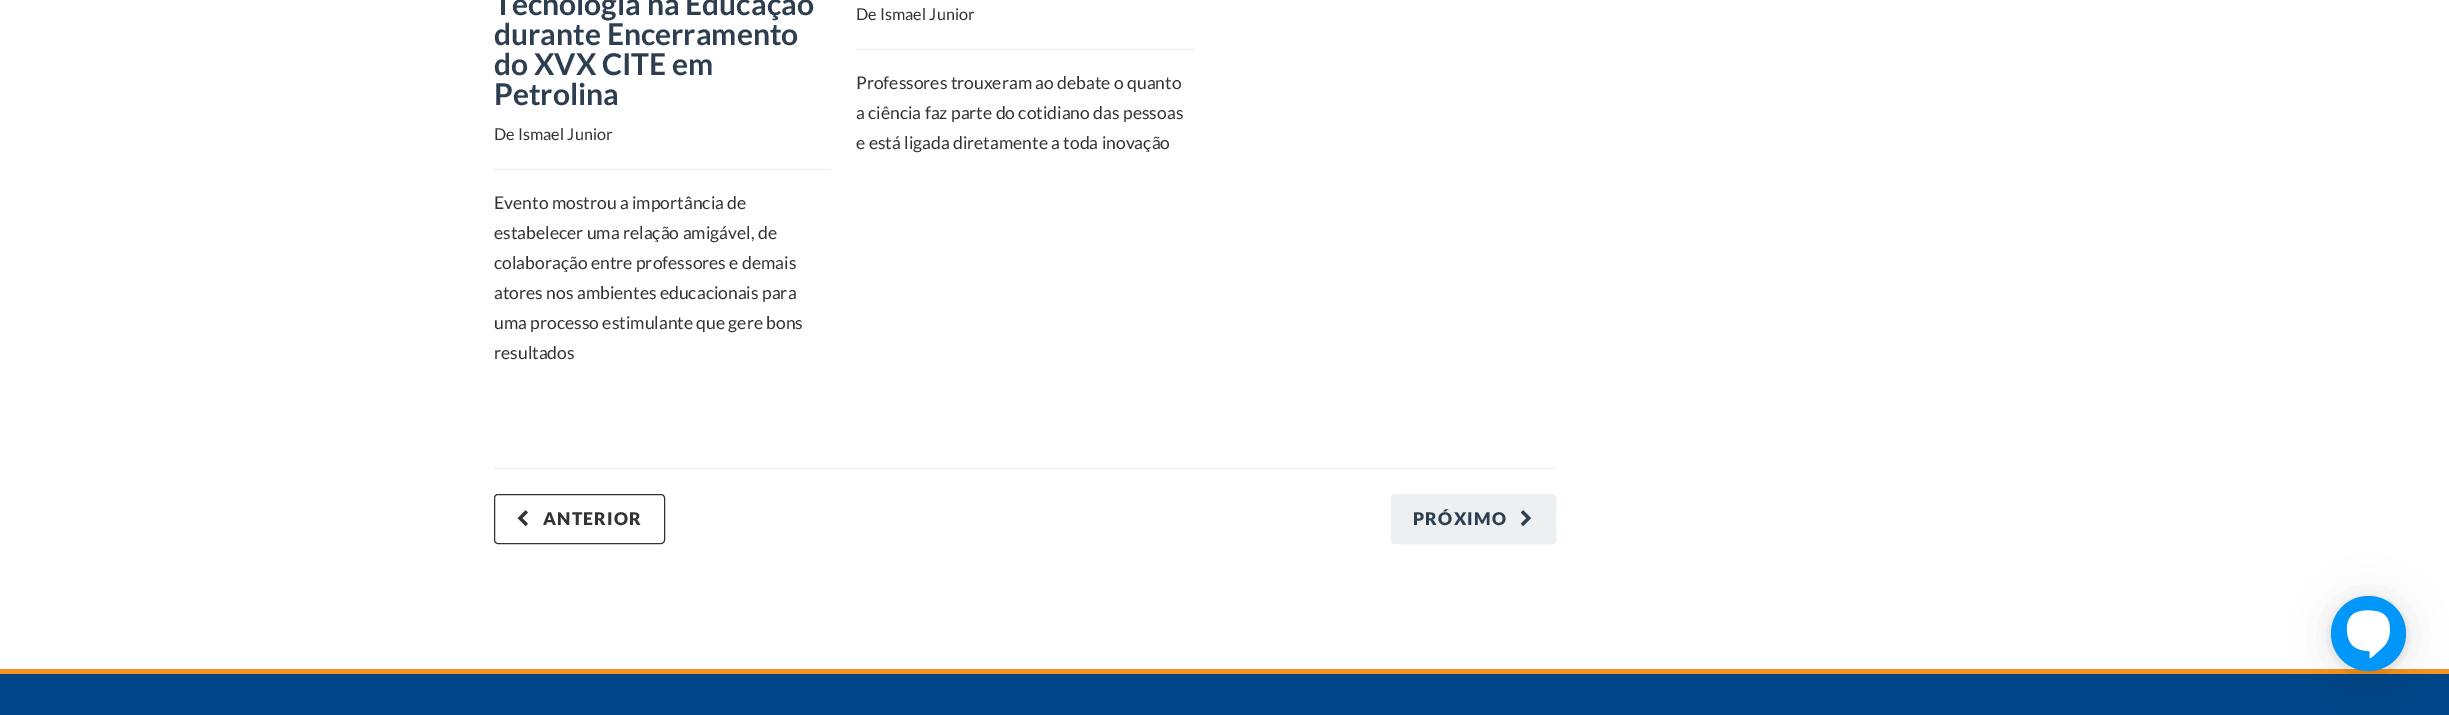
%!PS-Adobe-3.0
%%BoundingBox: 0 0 2449 715
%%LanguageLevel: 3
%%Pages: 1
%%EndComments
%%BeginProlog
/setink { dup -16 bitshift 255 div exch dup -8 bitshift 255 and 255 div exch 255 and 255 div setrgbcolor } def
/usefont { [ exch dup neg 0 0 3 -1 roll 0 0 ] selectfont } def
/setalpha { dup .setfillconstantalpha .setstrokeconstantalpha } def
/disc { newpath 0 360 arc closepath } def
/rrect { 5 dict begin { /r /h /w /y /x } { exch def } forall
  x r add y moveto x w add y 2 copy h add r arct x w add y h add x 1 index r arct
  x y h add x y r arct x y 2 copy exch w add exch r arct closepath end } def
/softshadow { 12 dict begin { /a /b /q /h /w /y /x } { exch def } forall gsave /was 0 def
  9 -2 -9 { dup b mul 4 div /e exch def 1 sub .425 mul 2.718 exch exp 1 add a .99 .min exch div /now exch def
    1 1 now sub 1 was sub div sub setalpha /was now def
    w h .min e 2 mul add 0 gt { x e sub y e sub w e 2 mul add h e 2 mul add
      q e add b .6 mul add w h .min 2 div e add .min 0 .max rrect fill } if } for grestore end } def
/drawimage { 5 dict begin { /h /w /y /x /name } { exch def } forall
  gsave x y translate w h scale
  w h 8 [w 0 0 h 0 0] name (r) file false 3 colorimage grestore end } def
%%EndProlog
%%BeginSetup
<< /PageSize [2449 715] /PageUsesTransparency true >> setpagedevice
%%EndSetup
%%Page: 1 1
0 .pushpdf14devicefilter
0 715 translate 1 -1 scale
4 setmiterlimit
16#FFFFFF setink
0 0 2449 715 rectfill
/Lato-Bold 30 usefont
16#2C3E50 setink
[
    [(Tecnologia na Educação) 494 15]
    [(durante Encerramento) 494 45]
    [(do XVX CITE em) 494 75]
    [(Petrolina) 494 105]
] { aload pop moveto show } forall
16#ECF0F1 setink
494 169 337 1 rectfill
/Lato-Regular 16.25 usefont
16#333333 setink
494 140 moveto (De Ismael Junior) show
/Lato-Regular 17.5 usefont
[
    [(Evento mostrou a importância de) 494 209]
    [(estabelecer uma relação amigável, de) 494 239]
    [(colaboração entre professores e demais) 494 269]
    [(atores nos ambientes educacionais para) 494 299]
    [(uma processo estimulante que gere bons) 494 329]
    [(resultados) 494 359]
] { aload pop moveto show } forall
16#ECF0F1 setink
856 49 338 1 rectfill
/Lato-Regular 16.25 usefont
16#333333 setink
856 20 moveto (De Ismael Junior) show
/Lato-Regular 17.5 usefont
[
    [(Professores trouxeram ao debate o quanto) 856 89]
    [(a ciência faz parte do cotidiano das pessoas) 856 119]
    [(e está ligada diretamente a toda inovação) 856 149]
] { aload pop moveto show } forall
16#ECF0F1 setink
494 468 1062 1 rectfill
16#333333 setink
494.5 494.5 170 49 3.5 rrect stroke
(img1.raw) 517 510 11 16 drawimage
/Lato-Black 17.5 usefont
543 525 moveto 1.25 0 (ANTERIOR) ashow
16#ECF0F1 setink
1391.5 494.5 164 49 3.5 rrect gsave fill grestore
stroke
16#2C3E50 setink
1413 525 moveto 1.25 0 (PRÓXIMO) ashow
(img2.raw) 1520 510 11 16 drawimage
16#004587 setink
0 674 2449 41 rectfill
16#F7941D setink
0 669 2449 5 rectfill
16#000000 setink
2331 599 75 75 37.5 20 0.1 softshadow
2331 598 75 75 37.5 4 0.1 softshadow
16#0096FA setink
2368.5 633.5 37.5 disc fill
(img3.raw) 2346 610 44 49 drawimage
.poppdf14devicefilter showpage
%%EOF
